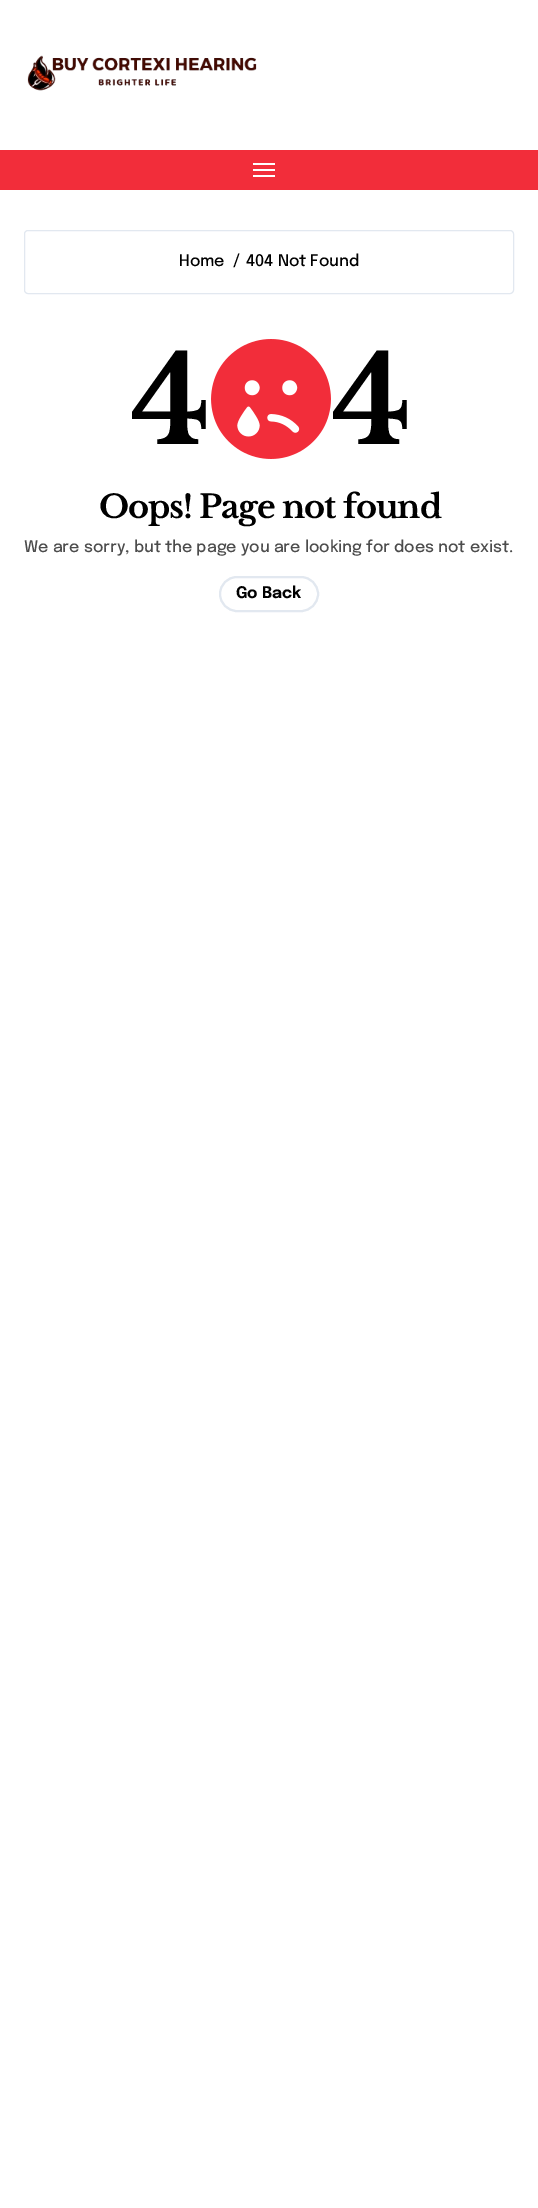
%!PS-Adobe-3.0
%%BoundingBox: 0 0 538 2208
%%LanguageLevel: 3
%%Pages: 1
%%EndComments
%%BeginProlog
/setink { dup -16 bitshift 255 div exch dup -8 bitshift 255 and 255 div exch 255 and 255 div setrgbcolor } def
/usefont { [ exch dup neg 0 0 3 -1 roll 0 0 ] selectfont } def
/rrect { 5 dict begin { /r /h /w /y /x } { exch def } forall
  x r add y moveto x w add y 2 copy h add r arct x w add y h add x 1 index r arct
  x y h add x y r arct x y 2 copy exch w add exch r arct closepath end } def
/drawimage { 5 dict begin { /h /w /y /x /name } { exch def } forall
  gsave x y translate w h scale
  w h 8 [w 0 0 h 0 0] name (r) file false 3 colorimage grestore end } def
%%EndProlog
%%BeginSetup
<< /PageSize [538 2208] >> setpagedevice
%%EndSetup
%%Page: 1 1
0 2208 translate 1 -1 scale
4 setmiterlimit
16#FFFFFF setink
0 0 538 2208 rectfill
(img1.raw) 27 55 230 36 drawimage
[
    [0 150 538 40 16#F22D3A]
    [253 163 22 2 16#FFFFFF]
    [253 169 22 2 16#FFFFFF]
    [253 175 22 2 16#FFFFFF]
] { aload pop setink rectfill } forall
16#E2E8F0 setink
24.5 230.5 489 63 3.5 rrect stroke
/Epilogue-Medium 16 usefont
16#000000 setink
[
    [(Home) 179 266]
    [(/) 233 266]
    [(404 Not Found) 246 266]
] { aload pop moveto show } forall
/LibreBaskerville-Bold 120 usefont
131 444 moveto -4 0 (4) ashow
(img2.raw) 211 339 120 120 drawimage
332 444 moveto -4 0 (4) ashow
/LibreBaskerville-Bold 32 usefont
99 518 moveto -1.1 0 (Oops! Page not found) ashow
/Epilogue-Medium 16 usefont
16#4C4C4C setink
24 552 moveto (We are sorry, but the page you are looking for does not exist.) show
16#E2E8F0 setink
2 setlinewidth
220 577 98 34 17 rrect stroke
/Epilogue-Bold 16 usefont
16#000000 setink
236 598 moveto (Go Back) show
showpage
%%EOF
